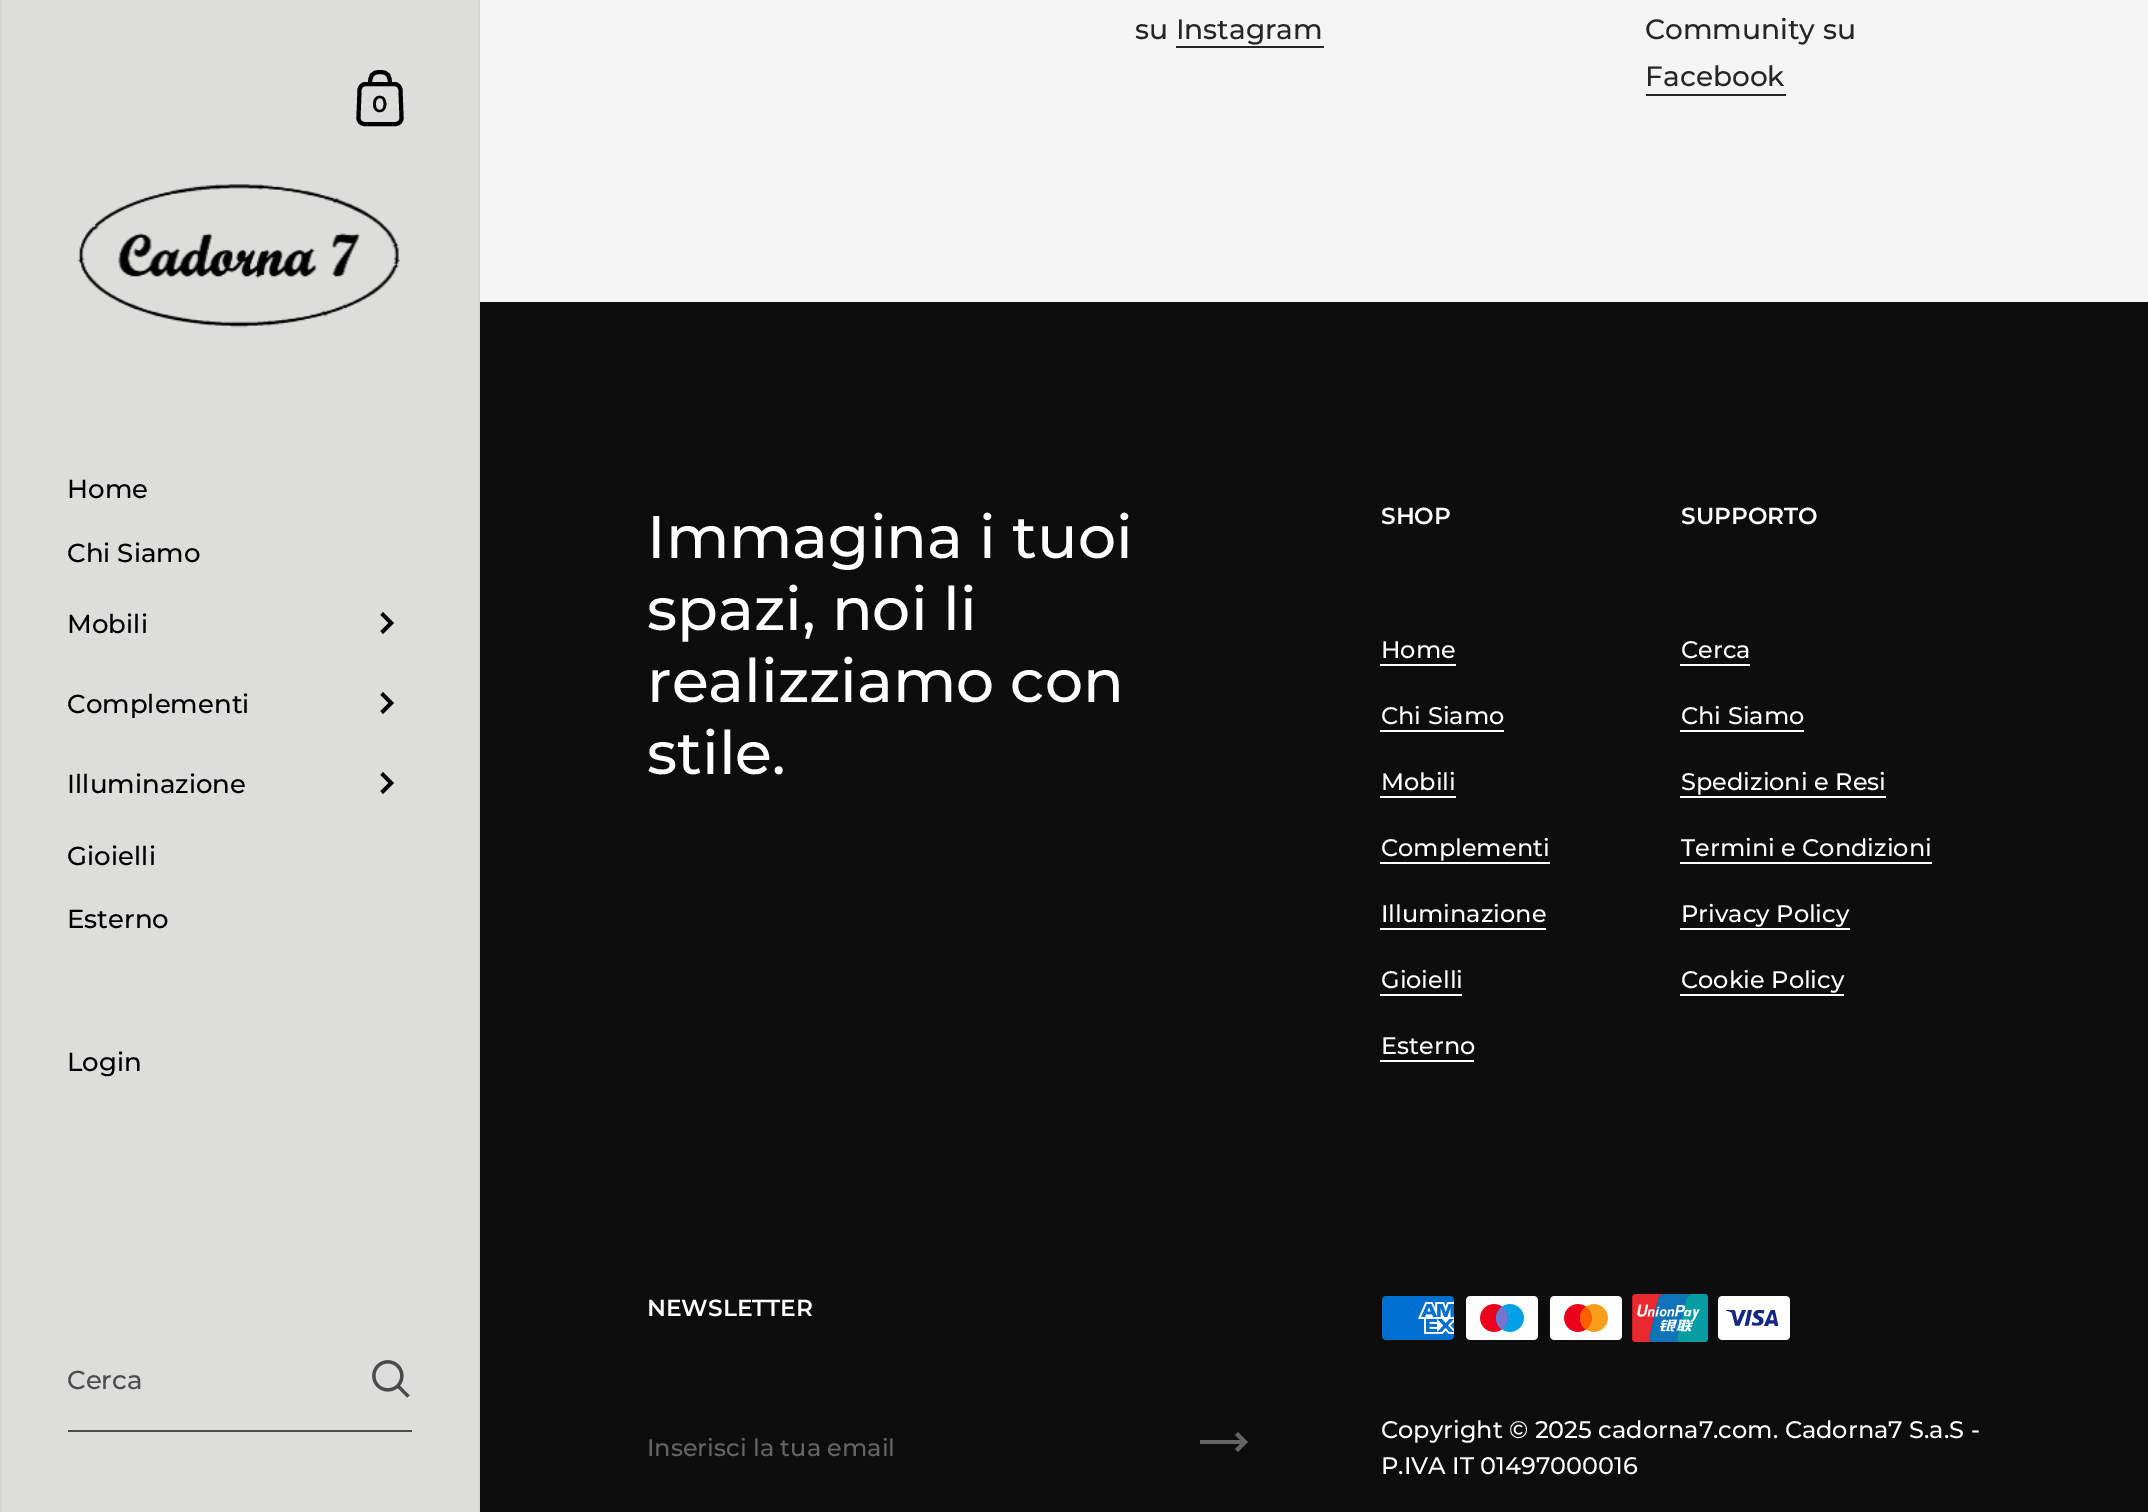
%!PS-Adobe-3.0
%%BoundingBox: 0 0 2148 1512
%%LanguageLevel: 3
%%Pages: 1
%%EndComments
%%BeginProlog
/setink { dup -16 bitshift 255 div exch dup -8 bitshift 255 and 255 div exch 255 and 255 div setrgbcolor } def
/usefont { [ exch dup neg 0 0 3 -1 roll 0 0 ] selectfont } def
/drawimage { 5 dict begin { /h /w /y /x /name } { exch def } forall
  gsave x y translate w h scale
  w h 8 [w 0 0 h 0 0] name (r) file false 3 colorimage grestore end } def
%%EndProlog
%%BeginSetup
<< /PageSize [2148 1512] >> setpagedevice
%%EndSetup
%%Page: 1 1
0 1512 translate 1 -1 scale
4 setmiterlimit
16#F5F5F5 setink
0 0 2148 1512 rectfill
16#DDDDDC setink
2 0 476 1512 rectfill
16#D3D3D2 setink
478 0 2 1512 rectfill
16#000000 setink
4 setlinewidth
370 84 moveto 365.5 84 lineto 362.5 84 360 86.5 359.5 89.5 curveto 358.5 117.5 lineto 358 121 361 124 364.5 124 curveto 395.5 124 lineto 399 124 402 121 401.5 117.5 curveto 400.5 89.5 lineto 400 86.5 397.5 84 394.5 84 curveto 390 84 lineto 370 84 moveto 370 76.5 371.5 72 380 72 curveto 388.5 72 390 76.5 390 84 curveto 370 84 moveto 390 84 lineto stroke
/Montserrat-SemiBold 23 usefont
372 112 moveto (0) show
(img1.raw) 78 184 323 144 drawimage
/Montserrat-Medium 26 usefont
[
    [(Home) 67 498]
    [(Chi Siamo) 67 562]
    [(Mobili) 67 633]
] { aload pop moveto show } forall
391 620 moveto 383 612 lineto 380.5 615 lineto 388.5 623 lineto 380.5 631 lineto 383 634 lineto 394 623 lineto closepath eofill
67 713 moveto (Complementi) show
391 700 moveto 383 692 lineto 380.5 695 lineto 388.5 703 lineto 380.5 711 lineto 383 714 lineto 394 703 lineto closepath eofill
67 793 moveto (Illuminazione) show
391 780 moveto 383 772 lineto 380.5 775 lineto 388.5 783 lineto 380.5 791 lineto 383 794 lineto 394 783 lineto closepath eofill
[
    [(Gioielli) 67 865]
    [(Esterno) 67 928]
    [(Login) 67 1071]
] { aload pop moveto show } forall
16#D3D3D2 setink
0 0 2 1512 rectfill
16#4B4B4B setink
68 1430 344 2 rectfill
67 1389 moveto (Cerca) show
(img2.raw) 372 1360 38 38 drawimage
/Montserrat-Medium 28 usefont
16#262626 setink
1135 39 moveto (su Instagram) show
1176 46 148 2 rectfill
1645 39 moveto (Community su) show
1645 86 moveto (Facebook) show
1646 94 140 2 rectfill
16#0D0D0D setink
480 302 1668 1210 rectfill
/Montserrat-Medium 60 usefont
16#FFFFFF setink
[
    [(Immagina i tuoi) 647 558]
    [(spazi, noi li) 647 630]
    [(realizziamo con) 647 702]
    [(stile.) 647 774]
] { aload pop moveto show } forall
/Montserrat-SemiBold 23.25 usefont
1381 524 moveto (SHOP) show
/Montserrat-Medium 24 usefont
1381 658 moveto (Home) show
1380 664 76 2 rectfill
1381 724 moveto (Chi Siamo) show
1380 730 124 2 rectfill
1381 790 moveto (Mobili) show
1380 796 76 2 rectfill
1381 856 moveto (Complementi) show
1380 862 170 2 rectfill
1381 922 moveto (Illuminazione) show
1380 928 166 2 rectfill
1381 988 moveto (Gioielli) show
1380 994 82 2 rectfill
1381 1054 moveto (Esterno) show
1380 1060 94 2 rectfill
/Montserrat-SemiBold 23.25 usefont
1681 524 moveto (SUPPORTO) show
/Montserrat-Medium 24 usefont
1681 658 moveto (Cerca) show
1680 664 70 2 rectfill
1681 724 moveto (Chi Siamo) show
1680 730 124 2 rectfill
1681 790 moveto (Spedizioni e Resi) show
1680 796 206 2 rectfill
1681 856 moveto (Termini e Condizioni) show
1680 862 252 2 rectfill
1681 922 moveto (Privacy Policy) show
1680 928 170 2 rectfill
1681 988 moveto (Cookie Policy) show
1680 994 164 2 rectfill
/Montserrat-SemiBold 23.25 usefont
647 1316 moveto (NEWSLETTER) show
/Montserrat-Medium 24 usefont
16#646464 setink
647 1456 moveto (Inserisci la tua email) show
gsave
1200 1432 48 22 rectclip
1240 1444 moveto 1235 1449 lineto 1238 1452 lineto 1248 1442 lineto 1238 1432 lineto 1235 1435 lineto 1240 1440 lineto 1180 1440 lineto 1180 1444 lineto closepath eofill
grestore
(img3.raw) 1382 1296 72 44 drawimage
(img4.raw) 1466 1296 72 44 drawimage
(img5.raw) 1550 1296 72 44 drawimage
(img6.raw) 1632 1294 76 48 drawimage
(img7.raw) 1718 1296 72 44 drawimage
16#FFFFFF setink
1381 1438 moveto (Copyright © 2025 cadorna7.com. Cadorna7 S.a.S -) show
1381 1474 moveto (P.IVA IT 01497000016) show
showpage
%%EOF
